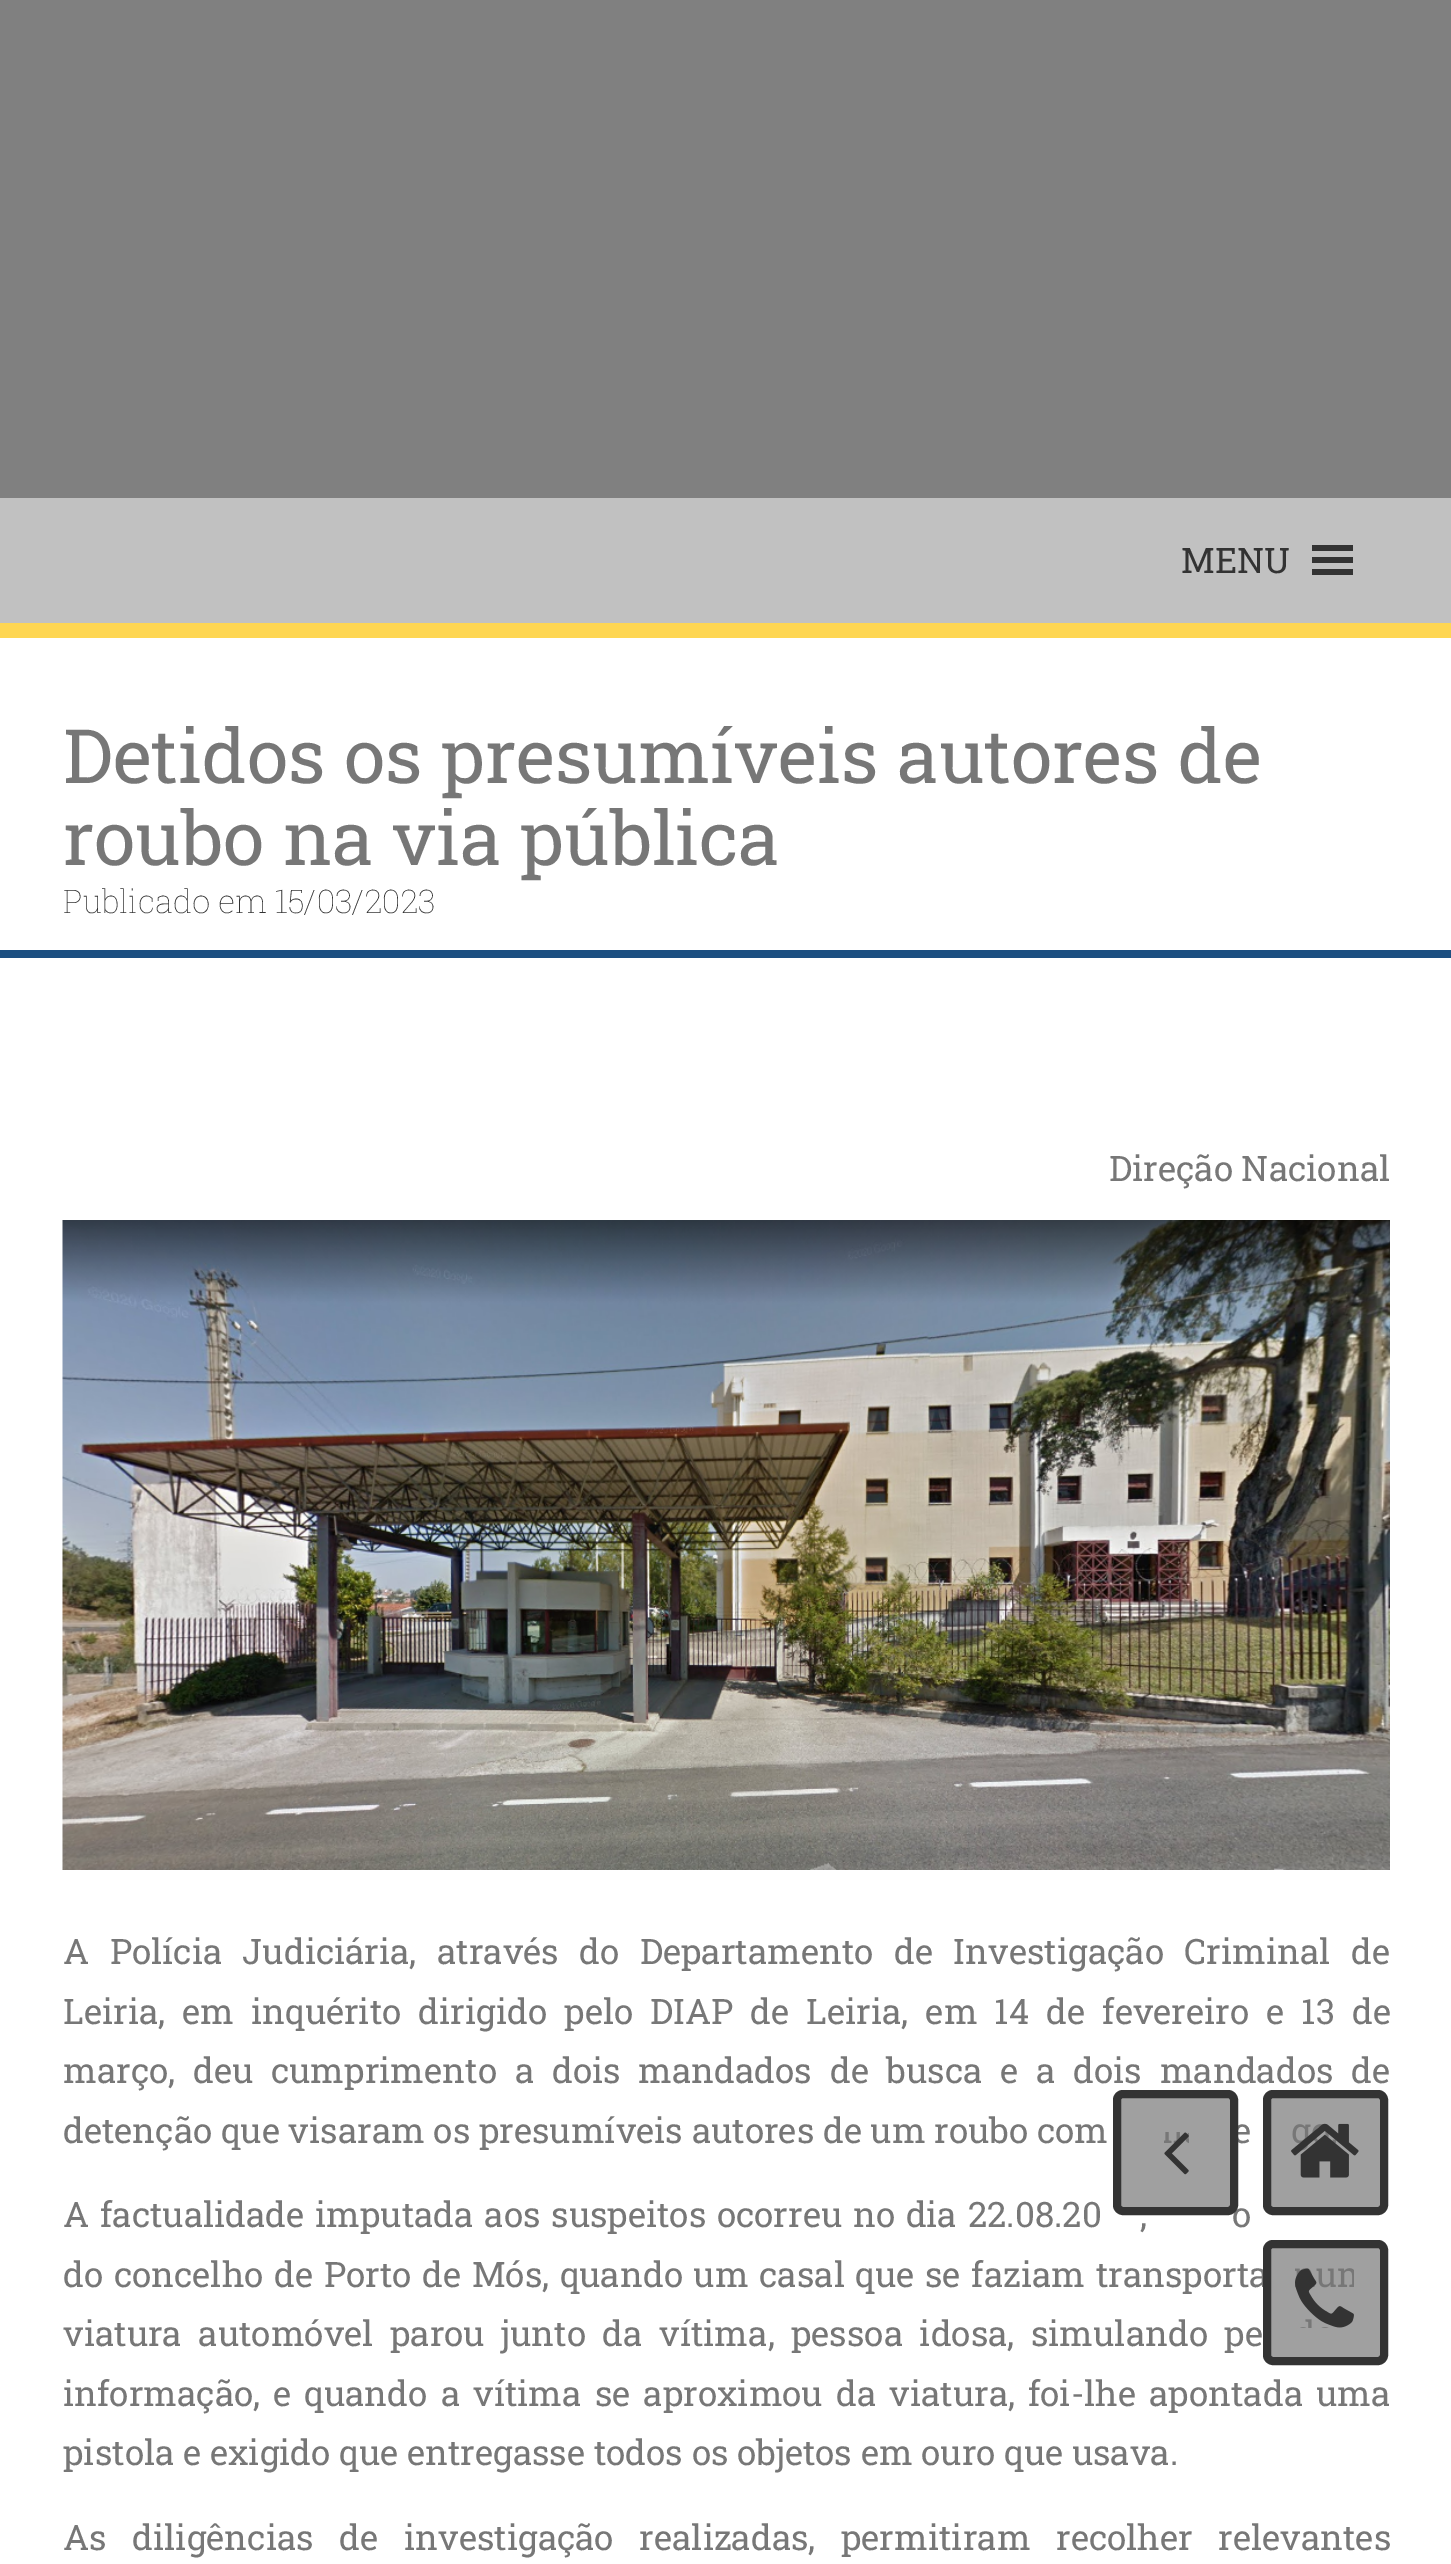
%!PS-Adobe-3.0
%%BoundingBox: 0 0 1451 2564
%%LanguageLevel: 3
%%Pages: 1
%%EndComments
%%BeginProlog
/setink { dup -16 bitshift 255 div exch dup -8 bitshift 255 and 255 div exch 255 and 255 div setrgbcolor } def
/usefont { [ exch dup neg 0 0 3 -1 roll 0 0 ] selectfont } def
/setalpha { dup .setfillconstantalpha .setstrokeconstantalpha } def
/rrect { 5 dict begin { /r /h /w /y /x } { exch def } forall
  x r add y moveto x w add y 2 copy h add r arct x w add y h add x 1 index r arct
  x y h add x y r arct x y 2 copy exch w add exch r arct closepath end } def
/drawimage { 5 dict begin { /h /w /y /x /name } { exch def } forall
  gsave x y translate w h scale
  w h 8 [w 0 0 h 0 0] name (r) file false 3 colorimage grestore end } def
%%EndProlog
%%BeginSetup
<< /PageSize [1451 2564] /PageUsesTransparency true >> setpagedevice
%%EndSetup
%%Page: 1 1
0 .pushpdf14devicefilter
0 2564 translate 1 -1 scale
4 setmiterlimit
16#FFFFFF setink
0 0 1451 2564 rectfill
[
    [0 0 1451 498 16#808080]
    [0 498 1451 125 16#C1C1C1]
    [0 623 1451 15 16#FED652]
] { aload pop setink rectfill } forall
/RobotoSlab-Regular 35 usefont
16#333333 setink
1181 573 moveto (MENU) show
1312 575 moveto 1353 575 lineto 1353 569 lineto 1312 569 lineto closepath 1312 545 moveto 1312 551 lineto 1353 551 lineto 1353 545 lineto closepath 1312 563 moveto 1353 563 lineto 1353 557 lineto 1312 557 lineto closepath fill
/RobotoSlab-Regular 75 usefont
16#777777 setink
63 783 moveto (Detidos os presumíveis autores de) show
63 865 moveto (roubo na via pública) show
/RobotoSlab-Thin 32.5 usefont
16#333333 setink
63 913 moveto (Publicado em 15/03/2023) show
16#1C4F81 setink
0 950 1451 8 rectfill
/RobotoSlab-Regular 35 usefont
16#777777 setink
1109 1181 moveto (Direção Nacional) show
(img1.raw) 62 1220 1328 650 drawimage
63 1964 moveto 11.75 0 32 (A Polícia Judiciária, através do Departamento de Investigação Criminal de) widthshow
63 2024 moveto 8.4 0 32 (Leiria, em inquérito dirigido pelo DIAP de Leiria, em 14 de fevereiro e 13 de) widthshow
63 2083 moveto 9.1 0 32 (março, deu cumprimento a dois mandados de busca e a dois mandados de) widthshow
63 2143 moveto (detenção que visaram os presumíveis autores de um roubo com) show
1233 2143 moveto (e) show
63 2227 moveto 2 0 32 (A factualidade imputada aos suspeitos ocorreu no dia 22.08.20) widthshow
1140 2227 moveto 2 0 32 (,) widthshow
1232 2227 moveto 2 0 32 (o) widthshow
63 2287 moveto 2 0 32 (do concelho de Porto de Mós, quando um casal que se faziam transporta) widthshow
63 2346 moveto 7.75 0 32 (viatura automóvel parou junto da vítima, pessoa idosa, simulando pe) widthshow
63 2406 moveto 4.4 0 32 (informação, e quando a vítima se aproximou da viatura, foi-lhe apontada uma) widthshow
63 2465 moveto (pistola e exigido que entregasse todos os objetos em ouro que usava.) show
63 2550 moveto 17 0 32 (As diligências de investigação realizadas, permitiram recolher relevantes) widthshow
0.7 setalpha
1117 2094 117 117 6 rrect fill
1 setalpha
16#333333 setink
8 setlinewidth
1117 2094 117 117 6 rrect stroke
(img2.raw) 1164 2132 25 43 drawimage
0.7 setalpha
16#777777 setink
1267 2094 117 117 6 rrect fill
1 setalpha
16#333333 setink
1267 2094 117 117 6 rrect stroke
(img3.raw) 1291 2123 68 55 drawimage
0.7 setalpha
16#777777 setink
1267 2244 117 117 6 rrect fill
1 setalpha
16#333333 setink
1267 2244 117 117 6 rrect stroke
(img4.raw) 1295 2268 59 60 drawimage
.poppdf14devicefilter showpage
%%EOF
